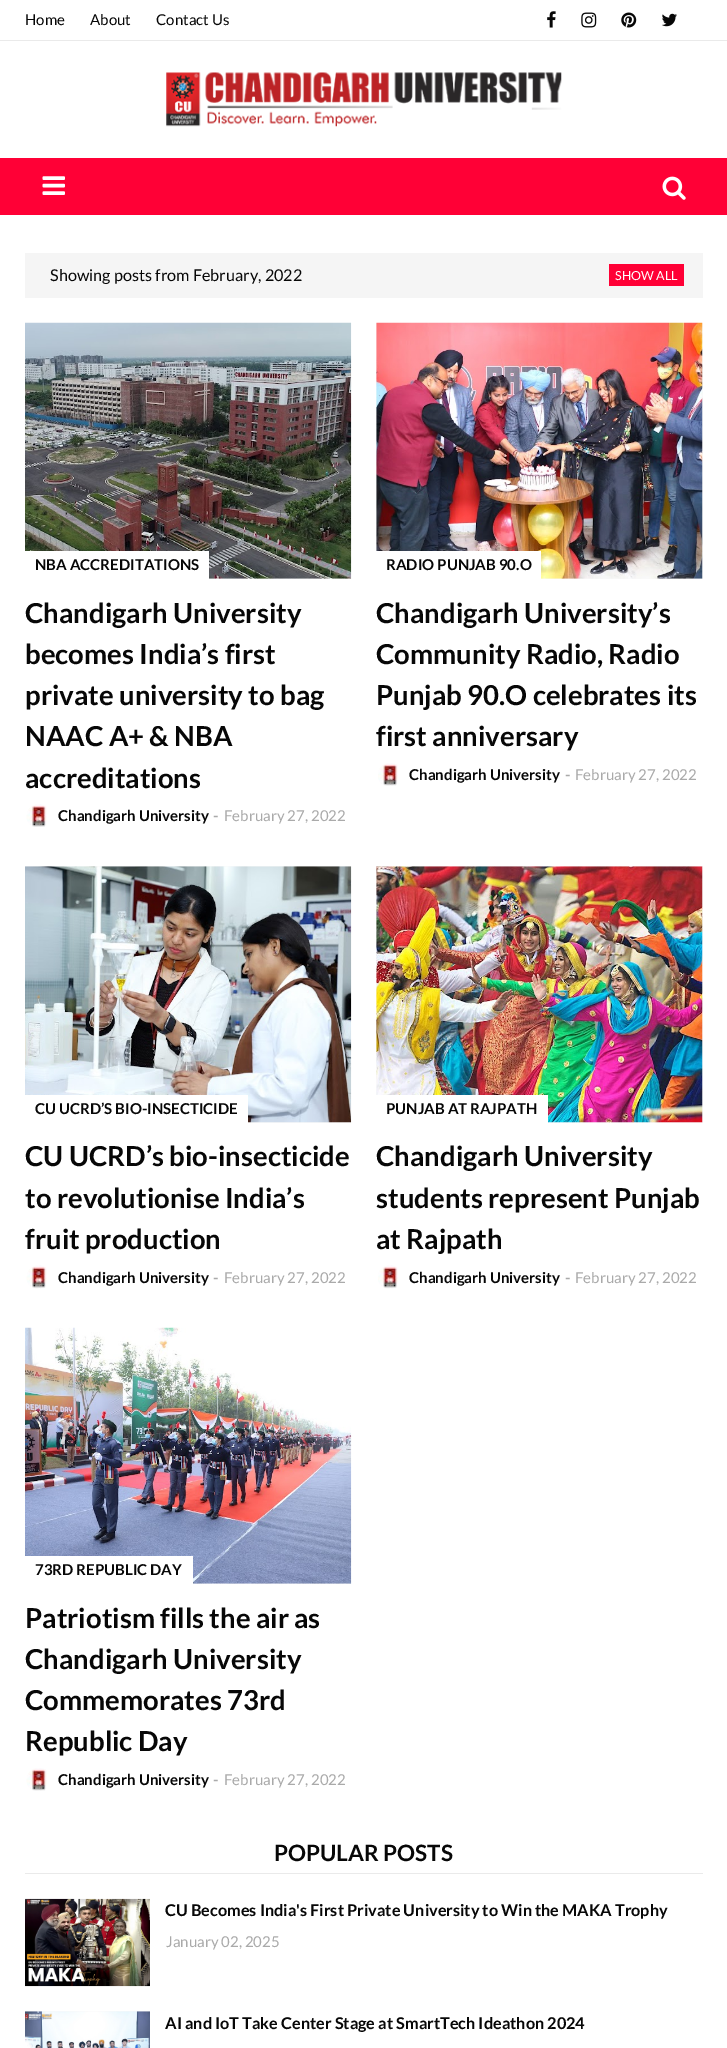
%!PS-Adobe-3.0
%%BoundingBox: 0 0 727 2048
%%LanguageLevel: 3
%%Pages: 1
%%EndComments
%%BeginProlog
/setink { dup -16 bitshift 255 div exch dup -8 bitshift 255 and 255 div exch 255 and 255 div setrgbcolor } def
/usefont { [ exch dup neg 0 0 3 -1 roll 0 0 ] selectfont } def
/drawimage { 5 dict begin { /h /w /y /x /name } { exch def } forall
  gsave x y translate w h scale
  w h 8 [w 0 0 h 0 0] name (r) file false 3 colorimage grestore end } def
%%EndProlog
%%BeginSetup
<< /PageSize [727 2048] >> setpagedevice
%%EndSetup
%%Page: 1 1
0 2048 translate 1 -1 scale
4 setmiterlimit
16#FFFFFF setink
0 0 727 2048 rectfill
16#EAEAEA setink
0 40 727 1 rectfill
/Lato-Regular 15 usefont
16#070707 setink
[
    [(Home) 25 25]
    [(About) 90 25]
    [(Contact Us) 156 25]
] { aload pop moveto show } forall
(img1.raw) 547 11 9 17 drawimage
(img2.raw) 581 12 16 16 drawimage
(img3.raw) 621 12 16 16 drawimage
(img4.raw) 662 13 15 14 drawimage
(img5.raw) 166 72 396 55 drawimage
16#FF0036 setink
0 158 727 57 rectfill
(img6.raw) 42 176 23 19 drawimage
(img7.raw) 662 176 24 24 drawimage
16#F5F5F5 setink
25 253 678 45 rectfill
/Lato-Regular 16.25 usefont
16#070707 setink
50 281 moveto (Showing posts from February, 2022) show
16#FF0036 setink
609 264 75 22 rectfill
/Lato-Regular 12.5 usefont
16#FFFFFF setink
615 280 moveto (SHOW ALL) show
16#F8F8F8 setink
209 578 142 1 rectfill
(img8.raw) 25 322 327 257 drawimage
16#FFFFFF setink
25 551 184 28 rectfill
/Lato-Bold 15 usefont
16#070707 setink
35 570 moveto (NBA ACCREDITATIONS) show
/Lato-Bold 27.5 usefont
[
    [(Chandigarh University) 25 623]
    [(becomes India’s first) 25 664]
    [(private university to bag) 25 705]
    [(NAAC A+ & NBA) 25 746]
    [(accreditations) 25 788]
] { aload pop moveto show } forall
(img9.raw) 26 804 21 23 drawimage
/Lato-Bold 15 usefont
58 821 moveto (Chandigarh University) show
16#AAAAAA setink
213 821 moveto (-) show
/Lato-Regular 15 usefont
224 821 moveto (February 27, 2022) show
16#F8F8F8 setink
376 323 327 256 rectfill
(img10.raw) 376 322 327 257 drawimage
16#FFFFFF setink
376 551 165 28 rectfill
/Lato-Bold 15 usefont
16#070707 setink
386 570 moveto (RADIO PUNJAB 90.O) show
/Lato-Bold 27.5 usefont
[
    [(Chandigarh University’s) 376 623]
    [(Community Radio, Radio) 376 664]
    [(Punjab 90.O celebrates its) 376 705]
    [(first anniversary) 376 746]
] { aload pop moveto show } forall
(img11.raw) 378 763 20 23 drawimage
/Lato-Bold 15 usefont
409 780 moveto (Chandigarh University) show
16#AAAAAA setink
565 780 moveto (-) show
/Lato-Regular 15 usefont
575 780 moveto (February 27, 2022) show
16#F8F8F8 setink
25 866 326 257 rectfill
(img12.raw) 25 866 327 257 drawimage
16#FFFFFF setink
25 1095 223 28 rectfill
/Lato-Bold 15 usefont
16#070707 setink
35 1114 moveto (CU UCRD’S BIO-INSECTICIDE) show
/Lato-Bold 27.5 usefont
[
    [(CU UCRD’s bio-insecticide) 25 1166]
    [(to revolutionise India’s) 25 1208]
    [(fruit production) 25 1249]
] { aload pop moveto show } forall
(img13.raw) 26 1265 21 24 drawimage
/Lato-Bold 15 usefont
58 1283 moveto (Chandigarh University) show
16#AAAAAA setink
213 1283 moveto (-) show
/Lato-Regular 15 usefont
224 1283 moveto (February 27, 2022) show
16#F8F8F8 setink
376 866 327 257 rectfill
(img14.raw) 376 866 327 257 drawimage
16#FFFFFF setink
376 1095 172 28 rectfill
/Lato-Bold 15 usefont
16#070707 setink
386 1114 moveto (PUNJAB AT RAJPATH) show
/Lato-Bold 27.5 usefont
[
    [(Chandigarh University) 376 1166]
    [(students represent Punjab) 376 1208]
    [(at Rajpath) 376 1249]
] { aload pop moveto show } forall
(img15.raw) 378 1265 20 24 drawimage
/Lato-Bold 15 usefont
409 1283 moveto (Chandigarh University) show
16#AAAAAA setink
565 1283 moveto (-) show
/Lato-Regular 15 usefont
575 1283 moveto (February 27, 2022) show
16#F8F8F8 setink
193 1583 158 1 rectfill
(img16.raw) 25 1327 327 257 drawimage
16#FFFFFF setink
25 1556 168 28 rectfill
/Lato-Bold 15 usefont
16#070707 setink
35 1575 moveto (73RD REPUBLIC DAY) show
/Lato-Bold 27.5 usefont
[
    [(Patriotism fills the air as) 25 1628]
    [(Chandigarh University) 25 1669]
    [(Commemorates 73rd) 25 1710]
    [(Republic Day) 25 1751]
] { aload pop moveto show } forall
(img17.raw) 26 1768 21 23 drawimage
/Lato-Bold 15 usefont
58 1785 moveto (Chandigarh University) show
16#AAAAAA setink
213 1785 moveto (-) show
/Lato-Regular 15 usefont
224 1785 moveto (February 27, 2022) show
16#EAEAEA setink
25 1873 678 1 rectfill
/Lato-Bold 22.5 usefont
16#070707 setink
274 1861 moveto (POPULAR POSTS) show
(img18.raw) 25 1898 125 89 drawimage
/Lato-Bold 16.25 usefont
165 1916 moveto (CU Becomes India's First Private University to Win the MAKA Trophy) show
/Lato-Regular 15 usefont
16#AAAAAA setink
166 1947 moveto (January 02, 2025) show
16#F8F8F8 setink
25 2011 125 1 rectfill
(img19.raw) 25 2011 125 37 drawimage
/Lato-Bold 16.25 usefont
16#070707 setink
165 2029 moveto (AI and IoT Take Center Stage at SmartTech Ideathon 2024) show
showpage
%%EOF
